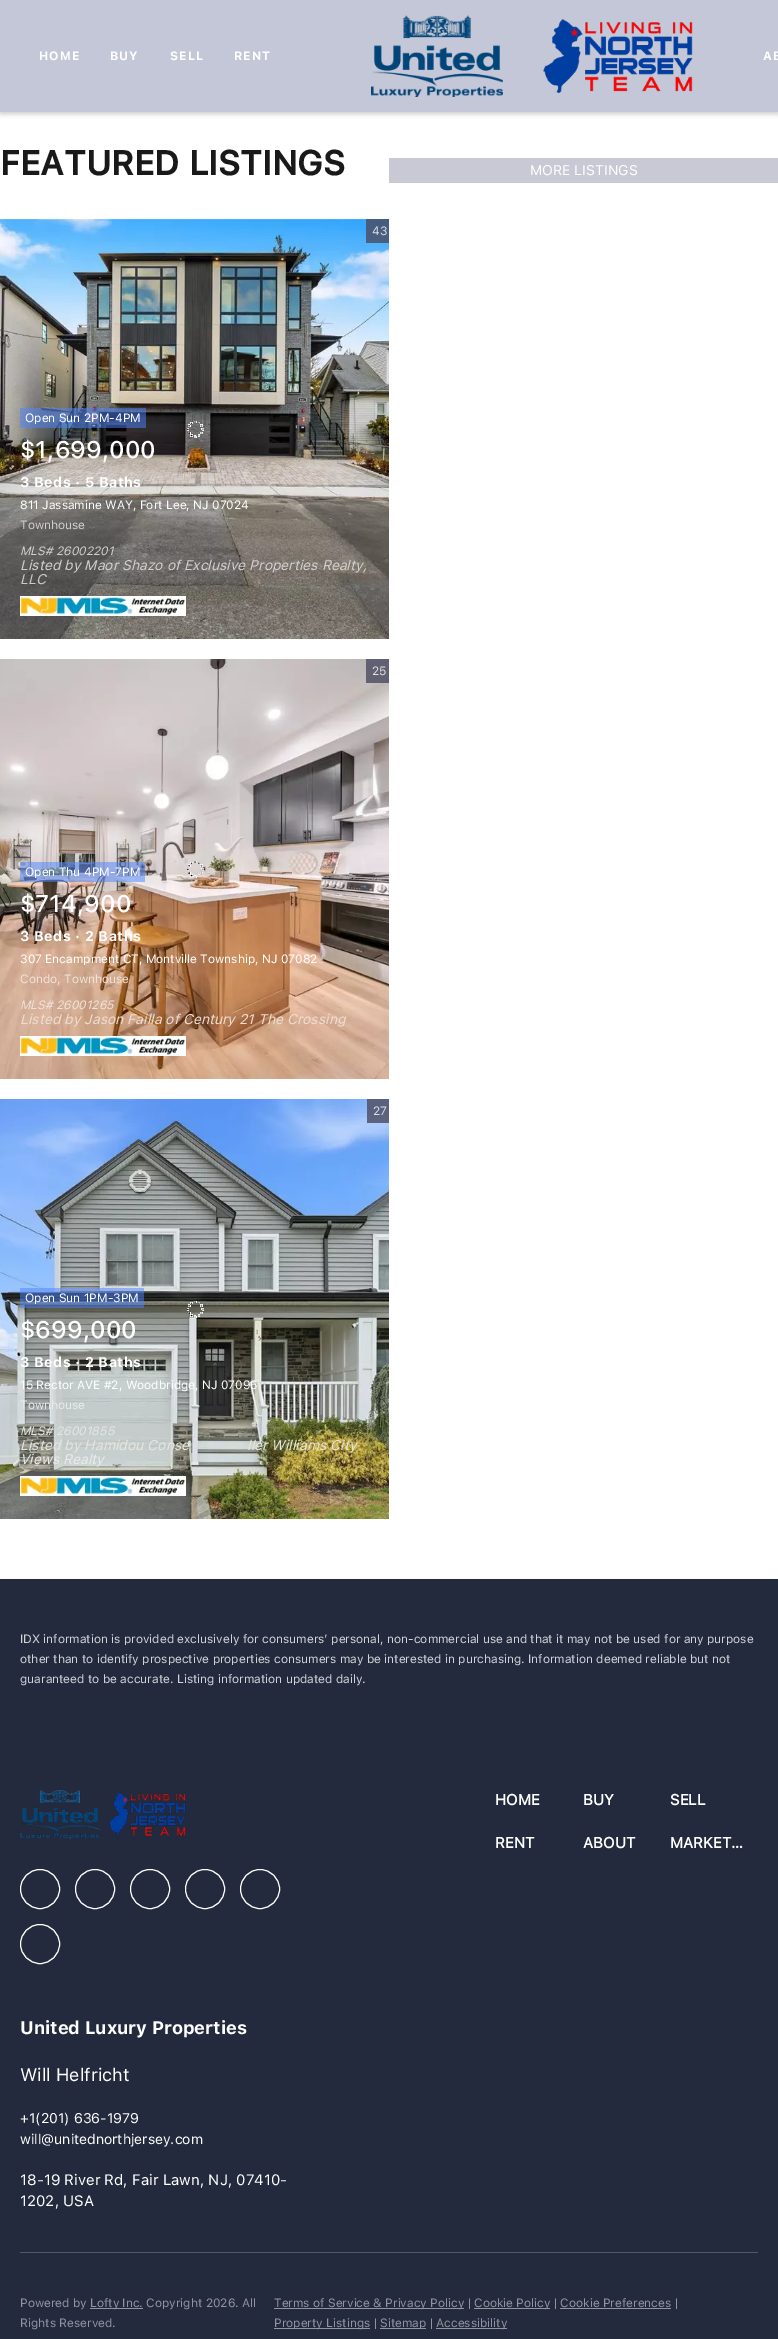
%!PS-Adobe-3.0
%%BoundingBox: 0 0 778 2339
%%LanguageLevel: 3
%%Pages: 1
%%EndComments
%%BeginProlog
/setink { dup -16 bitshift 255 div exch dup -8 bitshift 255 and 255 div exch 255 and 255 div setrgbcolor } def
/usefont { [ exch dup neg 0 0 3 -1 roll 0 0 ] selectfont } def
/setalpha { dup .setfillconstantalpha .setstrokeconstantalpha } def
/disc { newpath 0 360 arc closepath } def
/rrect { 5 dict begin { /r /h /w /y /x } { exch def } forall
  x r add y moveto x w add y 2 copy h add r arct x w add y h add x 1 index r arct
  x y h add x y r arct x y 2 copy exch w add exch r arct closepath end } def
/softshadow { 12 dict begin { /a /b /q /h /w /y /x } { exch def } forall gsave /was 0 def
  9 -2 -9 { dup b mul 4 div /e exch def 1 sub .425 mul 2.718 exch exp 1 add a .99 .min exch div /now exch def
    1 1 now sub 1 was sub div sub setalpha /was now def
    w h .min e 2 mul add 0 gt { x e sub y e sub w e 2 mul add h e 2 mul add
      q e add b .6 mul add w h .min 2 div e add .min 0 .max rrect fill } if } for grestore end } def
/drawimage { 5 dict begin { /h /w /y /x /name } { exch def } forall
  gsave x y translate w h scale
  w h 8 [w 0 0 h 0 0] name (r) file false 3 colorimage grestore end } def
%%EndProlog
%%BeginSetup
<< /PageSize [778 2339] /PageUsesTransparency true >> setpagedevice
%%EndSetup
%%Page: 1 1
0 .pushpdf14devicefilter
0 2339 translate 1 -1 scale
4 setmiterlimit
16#FFFFFF setink
0 0 778 2339 rectfill
16#000000 setink
0 2 778 112 0 2.5 0.2 softshadow
16#C3C7D7 setink
0 0 778 112 rectfill
/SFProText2-Bold 12 usefont
16#FFFFFF setink
39 60 moveto 1 0 (HOME) ashow
110 60 moveto 1 0 (BUY) ashow
170 60 moveto 1 0 (SELL) ashow
234 60 moveto 1 0 (RENT) ashow
(img1.raw) 371 15 132 82 drawimage
(img2.raw) 543 19 150 74 drawimage
763 60 moveto 1 0 (AB) ashow
/SFProText-Bold 34 usefont
16#191919 setink
0 175 moveto (FEATURED LISTINGS) show
16#C9C9D5 setink
389 158 389 25 rectfill
/SFProText-Regular 14 usefont
16#FFFFFF setink
530 175 moveto (MORE LISTINGS) show
(img3.raw) 0 219 389 420 drawimage
(img4.raw) 187 421 17 17 drawimage
0.8 setalpha
16#4A4A60 setink
366 219 23 24 rectfill
/SFProText-Regular 12 usefont
1 setalpha
16#DADFE5 setink
372 235 moveto (43) show
0.5 setalpha
16#4C84FF setink
20 408 126 20 rectfill
1 setalpha
16#FFFFFF setink
25 422 moveto (Open Sun 2PM-4PM) show
/SFProText-Medium 24 usefont
20 458 moveto ($1,699,000) show
/SFProText2-Bold 14 usefont
20 487 moveto 0.5 0 (3 Beds · 5 Baths) ashow
/SFProText-Regular 12 usefont
20 509 moveto (811 Jassamine WAY, Fort Lee, NJ 07024) show
16#D1D0D0 setink
20 529 moveto (Townhouse) show
/SFProText-Italic 12 usefont
20 555 moveto (MLS# 26002201) show
/SFProText-Italic 14 usefont
20 570 moveto (Listed by Maor Shazo of Exclusive Properties Realty,) show
16#CBCACA setink
20 584 moveto (LLC) show
(img5.raw) 20 596 166 20 drawimage
(img6.raw) 0 659 389 420 drawimage
(img7.raw) 187 861 17 17 drawimage
0.8 setalpha
16#4A4A60 setink
366 659 23 24 rectfill
/SFProText-Regular 12 usefont
1 setalpha
16#E0DFE3 setink
372 675 moveto (25) show
0.5 setalpha
16#4C84FF setink
20 862 125 20 rectfill
1 setalpha
16#FFFFFF setink
25 876 moveto (Open Thu 4PM-7PM) show
/SFProText-Medium 24 usefont
20 912 moveto ($714,900) show
/SFProText2-Bold 14 usefont
20 941 moveto 0.5 0 (3 Beds · 2 Baths) ashow
/SFProText-Regular 12 usefont
20 963 moveto (307 Encampment CT, Montville Township, NJ 07082) show
16#EFE3DB setink
20 983 moveto (Condo, Townhouse) show
/SFProText-Italic 12 usefont
20 1009 moveto (MLS# 26001265) show
/SFProText-Italic 14 usefont
16#ECDED4 setink
20 1024 moveto (Listed by Jason Failla of Century 21 The Crossing) show
(img5.raw) 20 1036 166 20 drawimage
(img8.raw) 0 1099 389 420 drawimage
(img9.raw) 187 1301 17 17 drawimage
0.8 setalpha
16#4A4A60 setink
367 1099 22 24 rectfill
/SFProText-Regular 12 usefont
1 setalpha
16#DADFE5 setink
373 1115 moveto (27) show
0.5 setalpha
16#4C84FF setink
20 1288 124 20 rectfill
1 setalpha
16#FFFFFF setink
25 1302 moveto (Open Sun 1PM-3PM) show
/SFProText-Medium 24 usefont
20 1338 moveto ($699,000) show
/SFProText2-Bold 14 usefont
20 1367 moveto 0.5 0 (3 Beds · 2 Baths) ashow
/SFProText-Regular 12 usefont
20 1389 moveto (15 Rector AVE #2, Woodbridge, NJ 07095) show
16#E9EBEB setink
20 1409 moveto (Townhouse) show
/SFProText-Italic 12 usefont
16#E5E6E5 setink
20 1435 moveto (MLS# 26001855) show
/SFProText-Italic 14 usefont
16#E6E6DF setink
20 1450 moveto (Listed by Hamidou Conse) show
247 1450 moveto (ller Williams City) show
16#E9EBEB setink
20 1464 moveto (Views Realty) show
(img5.raw) 20 1476 166 20 drawimage
16#242A3D setink
0 1579 778 760 rectfill
/SFProText-Regular 12 usefont
16#D3D4D8 setink
[
    [(IDX information is provided exclusively for consumers’ personal, non-commercial use and that it may not be used for any purpose) 20 1643]
    [(other than to identify prospective properties consumers may be interested in purchasing. Information deemed reliable but not) 20 1663]
    [(guaranteed to be accurate. Listing information updated daily.) 20 1683]
] { aload pop moveto show } forall
/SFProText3-Bold 15 usefont
16#FFFFFF setink
[
    [(HOME) 495 1805]
    [(RENT) 495 1848]
    [(BUY) 583 1805]
    [(ABOUT) 583 1848]
    [(SELL) 670 1805]
    [(MARKET…) 670 1848]
] { aload pop moveto show } forall
(img10.raw) 20 1789 166 50 drawimage
40 1889 19.5 disc stroke
95 1889 19.5 disc stroke
150 1889 19.5 disc stroke
205 1889 19.5 disc stroke
260 1889 19.5 disc stroke
40 1944 19.5 disc stroke
/SFProText2-Bold 18 usefont
20 2034 moveto (United Luxury Properties) show
/SFProText-Regular 18 usefont
20 2081 moveto (Will Helfricht) show
/SFProText-Regular 14 usefont
20 2123 moveto (+1\(201\) 636-1979) show
20 2144 moveto (will@unitednorthjersey.com) show
/SFProText-Regular 15 usefont
20 2185 moveto (18-19 River Rd, Fair Lawn, NJ, 07410-) show
20 2206 moveto (1202, USA) show
16#525665 setink
20 2252 738 1 rectfill
/SFProText-Regular 12 usefont
16#92959E setink
20 2307 moveto (Powered by) show
90 2308 53 1 rectfill
90 2307 moveto (Lofty Inc. Copyright 2026. All) show
20 2327 moveto (Rights Reserved.) show
274 2308 190 1 rectfill
274 2307 moveto (Terms of Service & Privacy Policy |) show
474 2308 76 1 rectfill
474 2307 moveto (Cookie Policy | Cookie Preferences |) show
560 2308 111 1 rectfill
274 2328 96 1 rectfill
274 2327 moveto (Property Listings |) show
380 2328 46 1 rectfill
380 2327 moveto (Sitemap |) show
436 2328 71 1 rectfill
436 2327 moveto (Accessibility) show
.poppdf14devicefilter showpage
%%EOF
